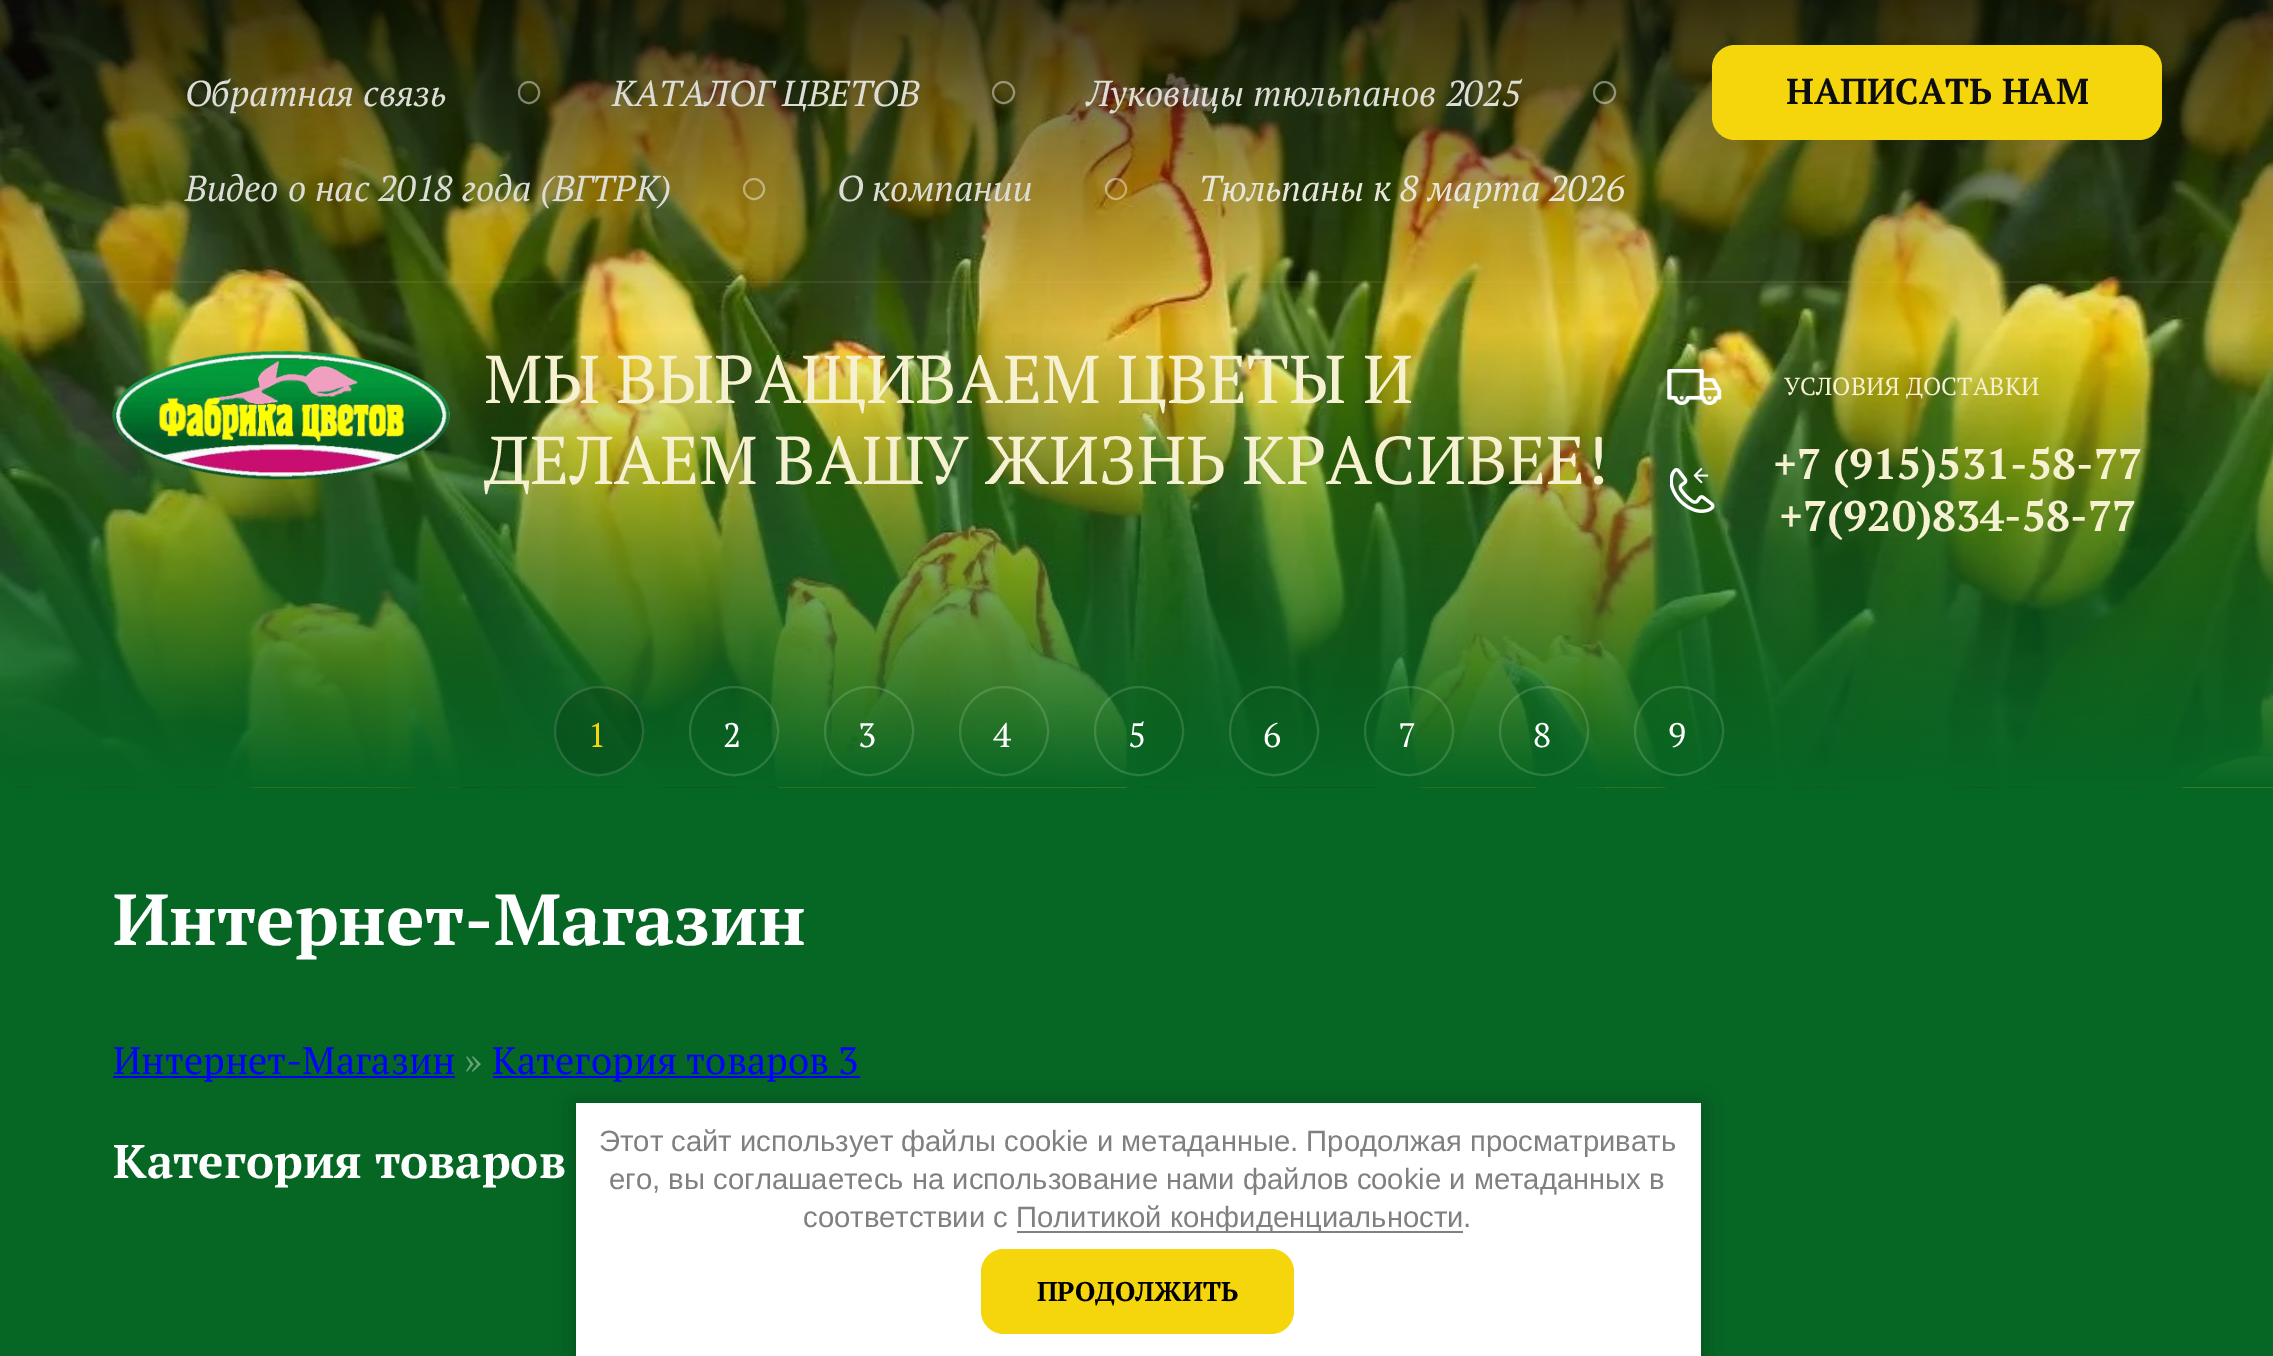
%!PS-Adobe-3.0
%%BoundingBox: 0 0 2273 1356
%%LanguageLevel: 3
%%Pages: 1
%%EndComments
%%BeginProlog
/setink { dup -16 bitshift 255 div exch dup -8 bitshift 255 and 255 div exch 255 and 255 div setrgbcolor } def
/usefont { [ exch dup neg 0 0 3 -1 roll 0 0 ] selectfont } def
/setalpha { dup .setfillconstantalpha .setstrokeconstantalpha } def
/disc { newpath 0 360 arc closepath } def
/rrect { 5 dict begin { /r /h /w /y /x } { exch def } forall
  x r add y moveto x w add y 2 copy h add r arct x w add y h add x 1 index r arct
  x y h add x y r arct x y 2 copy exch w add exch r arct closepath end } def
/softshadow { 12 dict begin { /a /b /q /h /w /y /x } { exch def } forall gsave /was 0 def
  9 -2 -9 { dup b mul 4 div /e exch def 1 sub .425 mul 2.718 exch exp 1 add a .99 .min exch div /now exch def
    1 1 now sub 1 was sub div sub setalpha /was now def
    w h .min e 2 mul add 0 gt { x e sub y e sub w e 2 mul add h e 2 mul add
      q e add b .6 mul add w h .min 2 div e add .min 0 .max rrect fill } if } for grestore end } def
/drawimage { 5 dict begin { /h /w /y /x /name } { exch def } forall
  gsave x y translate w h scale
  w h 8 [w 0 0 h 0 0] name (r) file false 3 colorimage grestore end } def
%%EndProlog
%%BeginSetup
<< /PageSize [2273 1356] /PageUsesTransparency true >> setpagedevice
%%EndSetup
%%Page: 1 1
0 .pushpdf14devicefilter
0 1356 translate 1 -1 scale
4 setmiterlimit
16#066624 setink
0 0 2273 1356 rectfill
(img4.raw) 0 0 2273 788 drawimage
(img5.raw) 0 0 2273 788 drawimage
0.1 setalpha
16#D9B598 setink
0 281 2273 2 rectfill
/PTSerif-Italic 36 usefont
1 setalpha
16#DDDDD5 setink
185 106 moveto (Обратная связь) show
0.43 setalpha
16#FFFFFF setink
2 setlinewidth
519 82 20 21 10 rrect stroke
1 setalpha
16#DDDDD5 setink
612 106 moveto (КАТАЛОГ ЦВЕТОВ) show
0.43 setalpha
16#FFFFFF setink
1003.5 92.5 10.5 disc stroke
1 setalpha
16#DDDDD5 setink
1087 106 moveto (Луковицы тюльпанов 2025) show
0.43 setalpha
16#FFFFFF setink
1604.5 92.5 10.5 disc stroke
1 setalpha
16#DDDDD5 setink
185 201 moveto (Видео о нас 2018 года \(ВГТРК\)) show
0.43 setalpha
16#FFFFFF setink
754 189 10 disc stroke
1 setalpha
16#DDDDD5 setink
837 201 moveto (О компании) show
0.43 setalpha
16#FFFFFF setink
1116 189 10 disc stroke
1 setalpha
16#E8E6D8 setink
1199 201 moveto (Тюльпаны к 8 марта 2026) show
16#F5D60C setink
1712 45 450 95 23 rrect fill
gsave
1787 70 301 45 rectclip
/PTSerif-Bold 36 usefont
16#0D0D0D setink
1786 104 moveto (НАПИСАТЬ НАМ) show
grestore
(img1.raw) 112 351 338 129 drawimage
/PTSerif-Regular 67.5 usefont
16#F6F1D1 setink
484 403 moveto (МЫ ВЫРАЩИВАЕМ ЦВЕТЫ И) show
484 484 moveto (ДЕЛАЕМ ВАШУ ЖИЗНЬ КРАСИВЕЕ!) show
(img2.raw) 1667 369 55 36 drawimage
/PTSerif-Regular 24.75 usefont
1784 395 moveto (УСЛОВИЯ ДОСТАВКИ) show
(img3.raw) 1670 468 45 45 drawimage
/PTSerif-Bold 42.75 usefont
1773 479 moveto (+7 \(915\)531-58-77) show
1779 531 moveto (+7\(920\)834-58-77) show
0.13 setalpha
16#000000 setink
599 731 45 disc fill
0.14 setalpha
16#FFFFFF setink
599 731 44 disc stroke
/PTSerif-Regular 34 usefont
1 setalpha
16#F5D60C setink
588 747 moveto (1) show
0.14 setalpha
16#FFFFFF setink
734 731 44 disc stroke
1 setalpha
723 747 moveto (2) show
0.14 setalpha
869 731 44 disc stroke
1 setalpha
858 747 moveto (3) show
0.14 setalpha
1004 731 44 disc stroke
1 setalpha
993 747 moveto (4) show
0.14 setalpha
1139 731 44 disc stroke
1 setalpha
1128 747 moveto (5) show
0.14 setalpha
1274 731 44 disc stroke
1 setalpha
1263 747 moveto (6) show
0.14 setalpha
1409 731 44 disc stroke
1 setalpha
1398 747 moveto (7) show
0.14 setalpha
1544 731 44 disc stroke
1 setalpha
1533 747 moveto (8) show
0.14 setalpha
1679 731 44 disc stroke
1 setalpha
1668 747 moveto (9) show
/PTSerif-Bold 72 usefont
113 945 moveto (Интернет-Магазин) show
16#0000FF setink
113 1076 342 2 rectfill
/PTSerif-Regular 38.25 usefont
113 1074 moveto (Интернет-Магазин) show
16#67A279 setink
464 1074 moveto (») show
16#0000FF setink
493 1076 367 2 rectfill
492 1074 moveto (Категория товаров 3) show
/PTSerif-Bold 47.25 usefont
16#FFFFFF setink
113 1178 moveto (Категория товаров) show
16#000000 setink
576 1105 1125 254 0 11 0.23 softshadow
16#FFFFFF setink
576 1103 1125 253 rectfill
/LiberationSans-Regular 29.25 usefont
16#808080 setink
[
    [(Этот сайт использует файлы cookie и метаданные. Продолжая просматривать) 599 1151]
    [(его, вы соглашаетесь на использование нами файлов cookie и метаданных в) 609 1189]
    [(соответствии с) 803 1227]
] { aload pop moveto show } forall
1017 1231 446 2 rectfill
1016 1227 moveto (Политикой конфиденциальности.) show
16#F5D60C setink
981 1249 313 85 23 rrect fill
/PTSerif-Bold 27 usefont
16#000000 setink
1037 1301 moveto (ПРОДОЛЖИТЬ) show
.poppdf14devicefilter showpage
%%EOF
